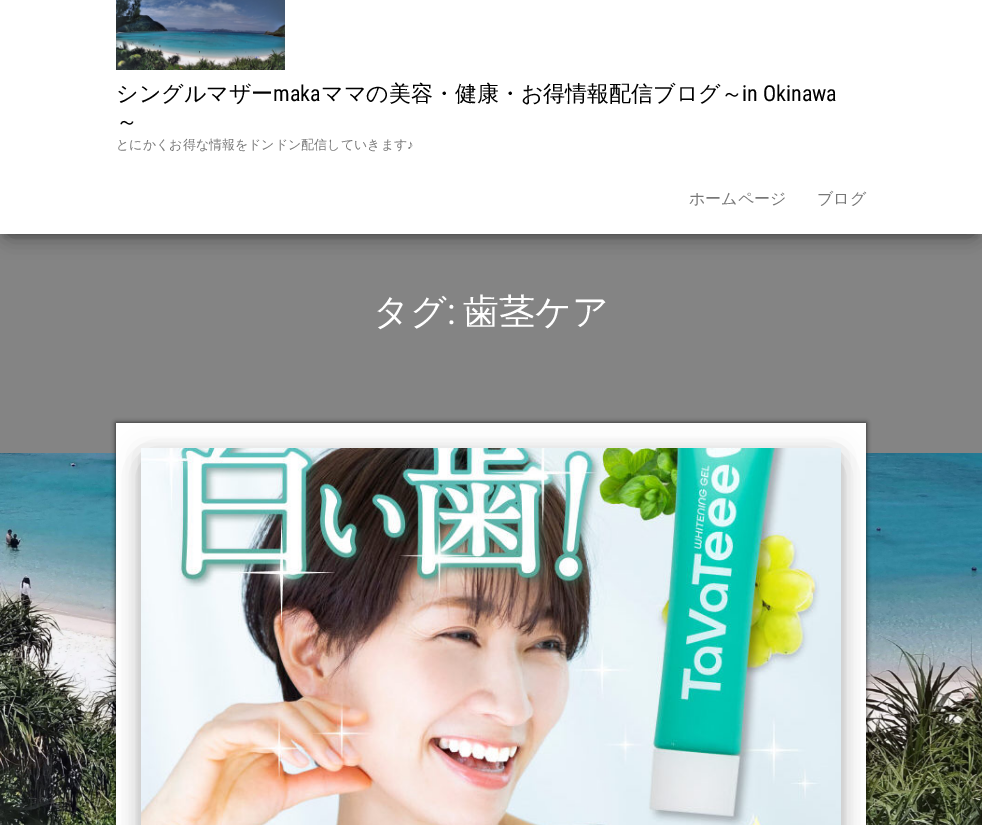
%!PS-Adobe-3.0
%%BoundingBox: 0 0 982 825
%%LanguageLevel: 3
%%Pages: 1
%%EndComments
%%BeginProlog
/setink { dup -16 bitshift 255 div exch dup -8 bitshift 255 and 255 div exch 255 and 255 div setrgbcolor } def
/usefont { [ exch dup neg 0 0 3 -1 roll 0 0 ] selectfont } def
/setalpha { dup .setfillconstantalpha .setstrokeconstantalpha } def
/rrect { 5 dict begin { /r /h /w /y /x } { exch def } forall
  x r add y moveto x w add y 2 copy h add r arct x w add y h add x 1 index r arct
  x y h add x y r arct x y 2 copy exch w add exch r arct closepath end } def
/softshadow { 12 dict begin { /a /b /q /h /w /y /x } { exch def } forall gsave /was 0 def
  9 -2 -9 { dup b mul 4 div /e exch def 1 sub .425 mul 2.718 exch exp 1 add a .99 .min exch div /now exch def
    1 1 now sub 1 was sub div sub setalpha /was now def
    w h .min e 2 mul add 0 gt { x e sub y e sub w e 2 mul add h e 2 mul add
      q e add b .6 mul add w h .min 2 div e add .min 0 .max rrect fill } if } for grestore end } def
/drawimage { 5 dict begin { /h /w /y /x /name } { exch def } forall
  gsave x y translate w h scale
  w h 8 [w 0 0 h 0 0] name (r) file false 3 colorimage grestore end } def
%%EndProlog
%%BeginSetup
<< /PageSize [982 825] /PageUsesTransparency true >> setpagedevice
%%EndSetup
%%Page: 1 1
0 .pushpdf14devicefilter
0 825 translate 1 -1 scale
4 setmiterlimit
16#FFFFFF setink
0 0 982 825 rectfill
(img1.raw) 0 453 982 372 drawimage
16#848484 setink
0 234 982 219 rectfill
16#000000 setink
5 13 972 224 0 5 0.2 softshadow
0 3 982 234 0 10 0.12 softshadow
12 22 958 210 0 10 0.42 softshadow
16#FFFFFF setink
0 0 982 234 rectfill
(img2.raw) 116 0 169 70 drawimage
/WenQuanYiZenHei-Medium 22 usefont
16#000000 setink
116 101 moveto (シングルマザー) show
/RobotoCondensed-Regular 22 usefont
273 101 moveto (maka) show
/WenQuanYiZenHei-Medium 22 usefont
321 101 moveto (ママの美容・健康・お得情報配信ブログ～) show
/RobotoCondensed-Regular 22 usefont
742 101 moveto (in Okinawa) show
/WenQuanYiZenHei-Medium 22 usefont
116 129 moveto (～) show
/WenQuanYiZenHei-Medium 13 usefont
16#777777 setink
116 149 moveto (とにかくお得な情報をドンドン配信していきます) show
/LiberationSans-Regular 13 usefont
407 149 moveto (♪) show
/WenQuanYiZenHei-Medium 16 usefont
689 204 moveto (ホームページ) show
817 204 moveto (ブログ) show
/WenQuanYiZenHei-Medium 36 usefont
16#FFFFFF setink
373 324 moveto (タグ) show
/RobotoCondensed-Regular 36 usefont
447 324 moveto (:) show
/WenQuanYiZenHei-Medium 36 usefont
463 324 moveto (歯茎ケア) show
16#000000 setink
116 423 750 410 0 2.5 0.75 softshadow
16#FFFFFF setink
116 423 750 402 rectfill
16#000000 setink
141 452 700 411 0 12.5 0.12 softshadow
153 470 676 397 0 14 0.56 softshadow
146 461 690 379 0 5 0.2 softshadow
(img3.raw) 141 448 700 377 drawimage
.poppdf14devicefilter showpage
%%EOF
